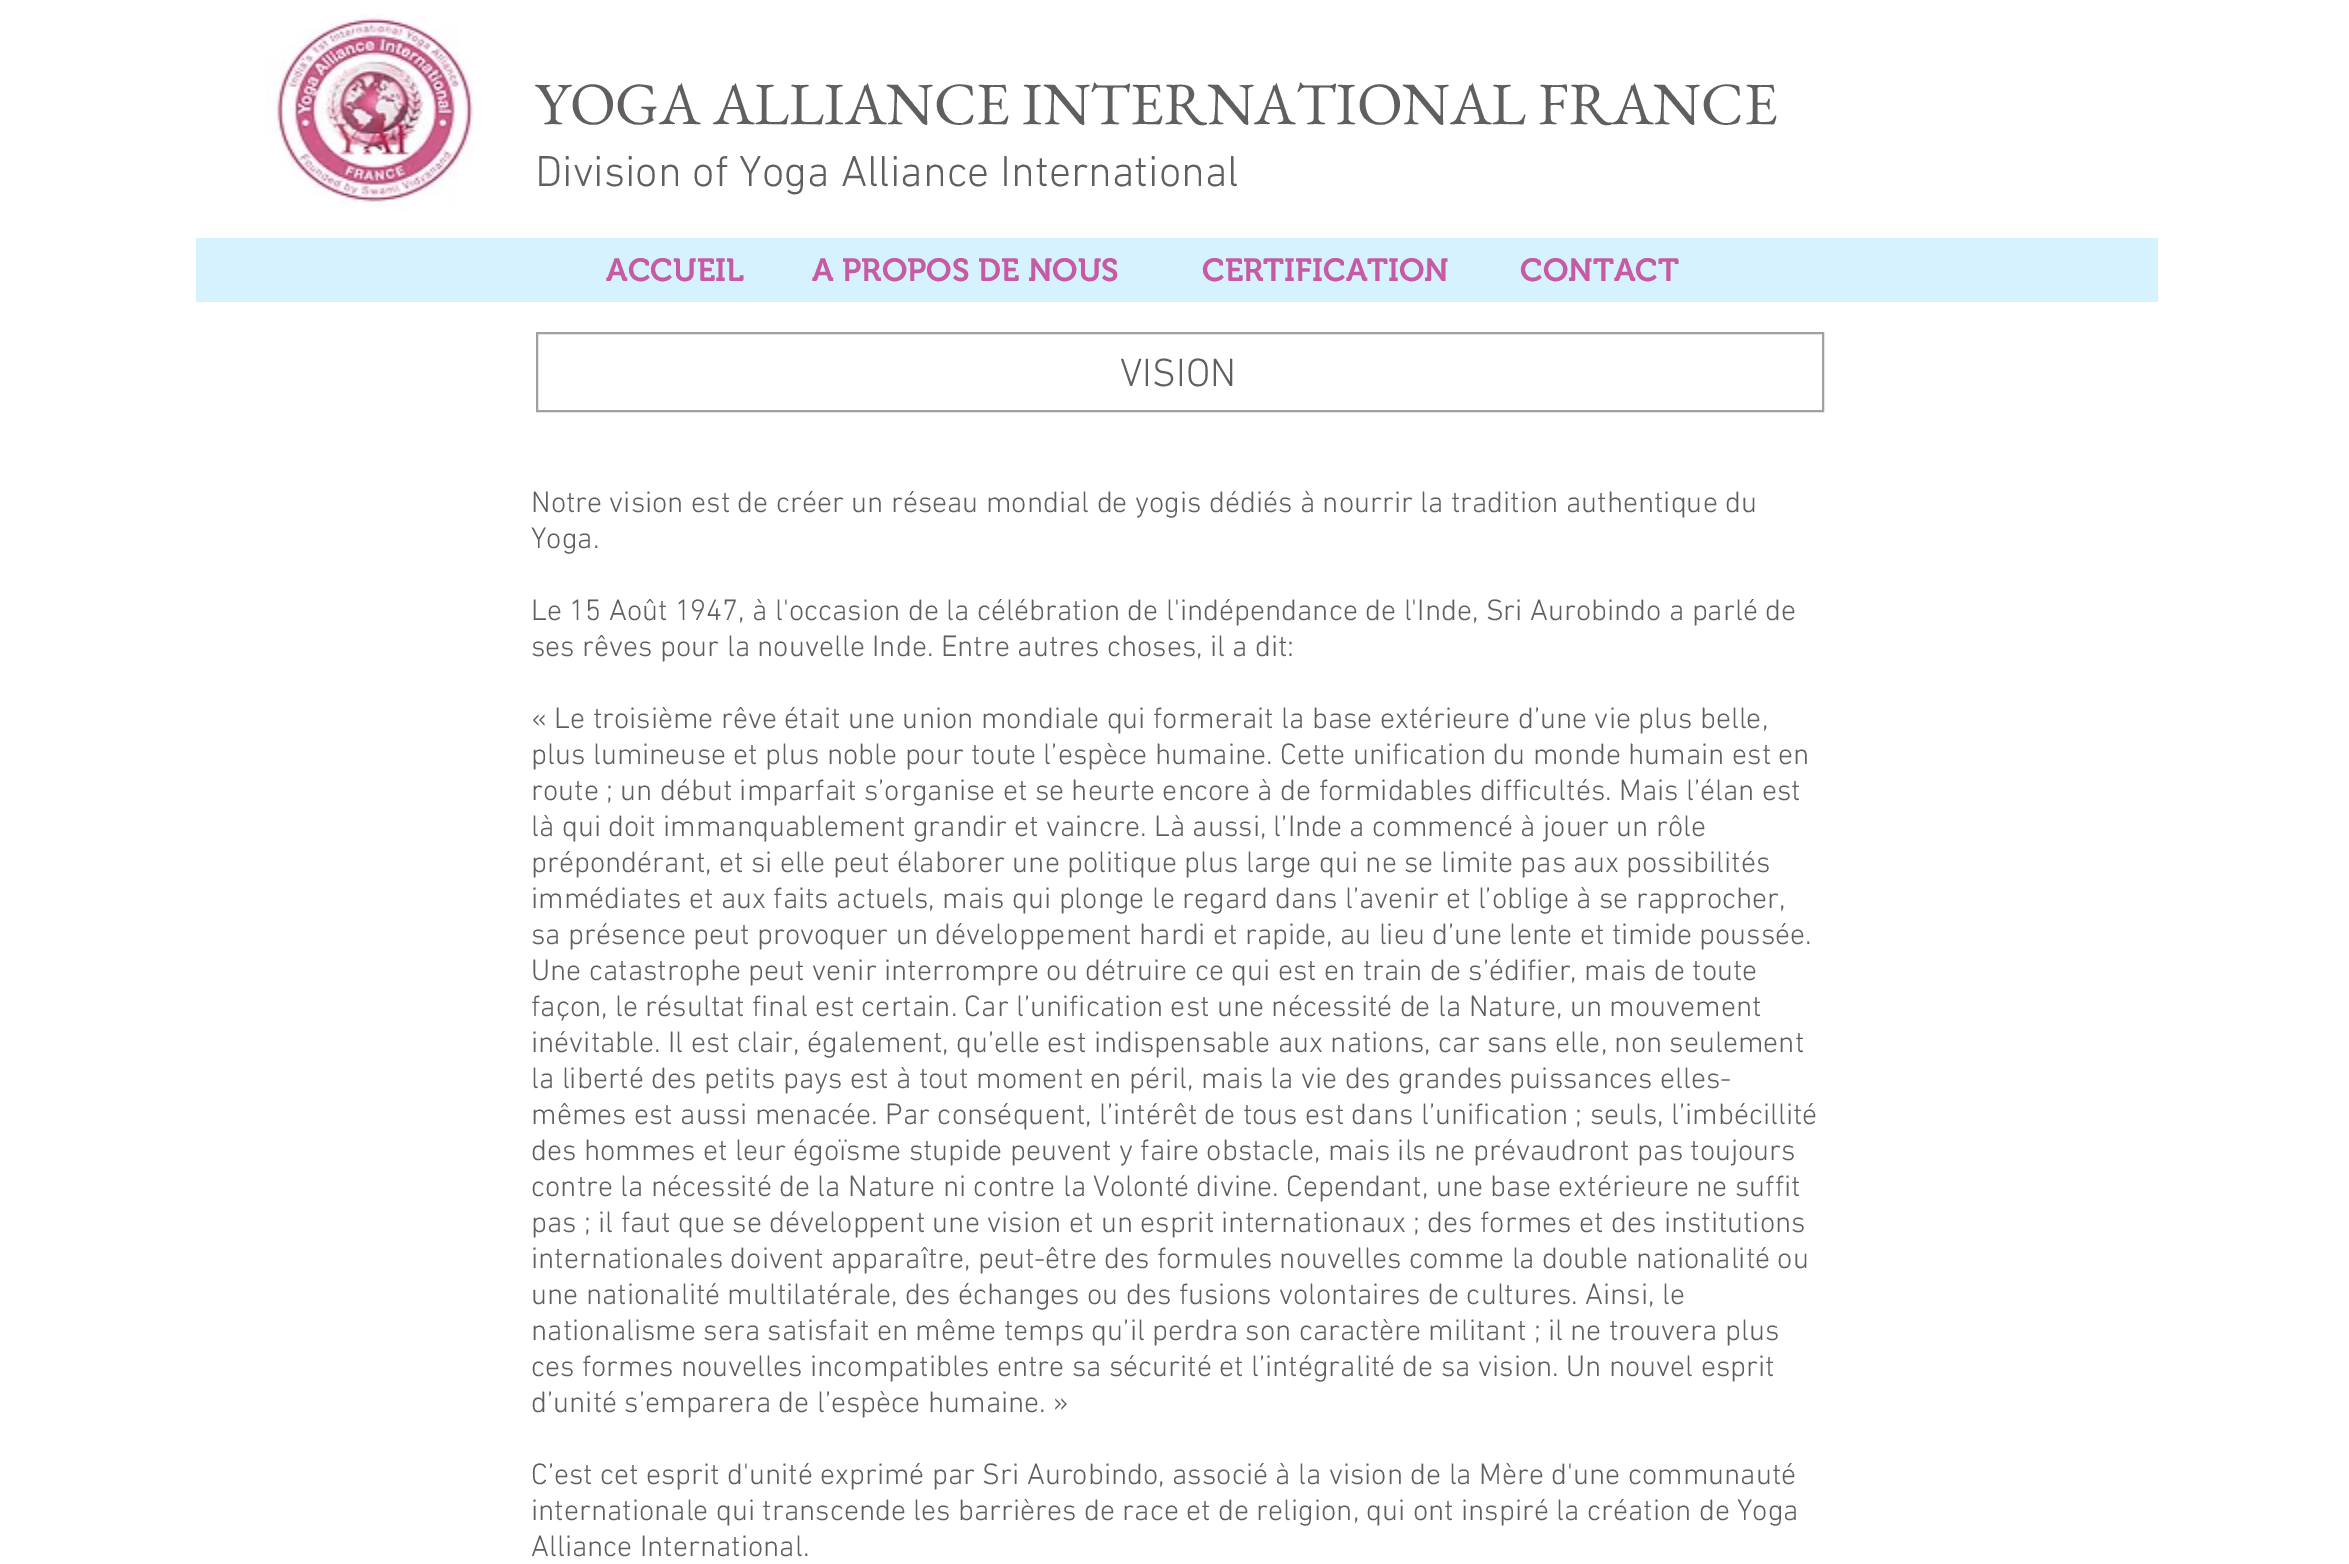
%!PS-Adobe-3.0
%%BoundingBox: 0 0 2349 1564
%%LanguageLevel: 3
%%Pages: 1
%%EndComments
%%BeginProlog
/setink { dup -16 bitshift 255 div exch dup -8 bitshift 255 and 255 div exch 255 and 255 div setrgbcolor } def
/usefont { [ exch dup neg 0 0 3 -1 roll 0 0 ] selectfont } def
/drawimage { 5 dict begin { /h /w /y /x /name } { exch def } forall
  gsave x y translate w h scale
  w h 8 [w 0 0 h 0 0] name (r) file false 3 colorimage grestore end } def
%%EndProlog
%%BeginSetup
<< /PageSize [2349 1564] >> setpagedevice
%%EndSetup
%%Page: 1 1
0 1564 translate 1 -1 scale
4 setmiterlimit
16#FFFFFF setink
0 0 2349 1564 rectfill
/EBGaramond-Regular 60 usefont
16#605E5E setink
535 124 moveto (YOGA ALLIANCE INTERNATIONAL FRANCE) show
(img1.raw) 266 14 208 196 drawimage
/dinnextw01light-Light 44 usefont
535 186 moveto (Division of Yoga Alliance International) show
16#D6F2FF setink
196 238 1962 64 rectfill
/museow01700-SemiBold 32 usefont
16#C65AA5 setink
[
    [(ACCUEIL) 606 281]
    [(A PROPOS DE NOUS) 812 281]
    [(CERTIFICATION) 1202 281]
    [(CONTACT) 1520 281]
] { aload pop moveto show } forall
16#A0A09F setink
2 setlinewidth
537 333 1286 78 rectstroke
/dinnextw01light-Light 40 usefont
16#605E5E setink
1120 386 moveto (VISION) show
/dinnextw01light-Light 30 usefont
[
    [(Notre vision est de créer un réseau mondial de yogis dédiés à nourrir la tradition authentique du) 531 512]
    [(Yoga.) 531 548]
    [(Le 15 Août 1947, à l'occasion de la célébration de l'indépendance de l'Inde, Sri Aurobindo a parlé de) 531 620]
    [(ses rêves pour la nouvelle Inde. Entre autres choses, il a dit:) 531 656]
    [(« Le troisième rêve était une union mondiale qui formerait la base extérieure d’une vie plus belle,) 531 728]
    [(plus lumineuse et plus noble pour toute l’espèce humaine. Cette unification du monde humain est en) 531 764]
    [(route ; un début imparfait s’organise et se heurte encore à de formidables difficultés. Mais l’élan est) 531 800]
    [(là qui doit immanquablement grandir et vaincre. Là aussi, l’Inde a commencé à jouer un rôle) 531 836]
    [(prépondérant, et si elle peut élaborer une politique plus large qui ne se limite pas aux possibilités) 531 872]
    [(immédiates et aux faits actuels, mais qui plonge le regard dans l’avenir et l’oblige à se rapprocher,) 531 908]
    [(sa présence peut provoquer un développement hardi et rapide, au lieu d’une lente et timide poussée.) 531 944]
    [(Une catastrophe peut venir interrompre ou détruire ce qui est en train de s’édifier, mais de toute) 531 980]
    [(façon, le résultat final est certain. Car l’unification est une nécessité de la Nature, un mouvement) 531 1016]
    [(inévitable. Il est clair, également, qu’elle est indispensable aux nations, car sans elle, non seulement) 531 1052]
    [(la liberté des petits pays est à tout moment en péril, mais la vie des grandes puissances elles-) 531 1088]
    [(mêmes est aussi menacée. Par conséquent, l’intérêt de tous est dans l’unification ; seuls, l’imbécillité) 531 1124]
    [(des hommes et leur égoïsme stupide peuvent y faire obstacle, mais ils ne prévaudront pas toujours) 531 1160]
    [(contre la nécessité de la Nature ni contre la Volonté divine. Cependant, une base extérieure ne suffit) 531 1196]
    [(pas ; il faut que se développent une vision et un esprit internationaux ; des formes et des institutions) 531 1232]
    [(internationales doivent apparaître, peut-être des formules nouvelles comme la double nationalité ou) 531 1268]
    [(une nationalité multilatérale, des échanges ou des fusions volontaires de cultures. Ainsi, le) 531 1304]
    [(nationalisme sera satisfait en même temps qu’il perdra son caractère militant ; il ne trouvera plus) 531 1340]
    [(ces formes nouvelles incompatibles entre sa sécurité et l’intégralité de sa vision. Un nouvel esprit) 531 1376]
    [(d’unité s’emparera de l’espèce humaine. ») 531 1412]
    [(C’est cet esprit d'unité exprimé par Sri Aurobindo, associé à la vision de la Mère d'une communauté) 531 1484]
    [(internationale qui transcende les barrières de race et de religion, qui ont inspiré la création de Yoga) 531 1520]
    [(Alliance International.) 531 1556]
] { aload pop moveto show } forall
showpage
%%EOF
